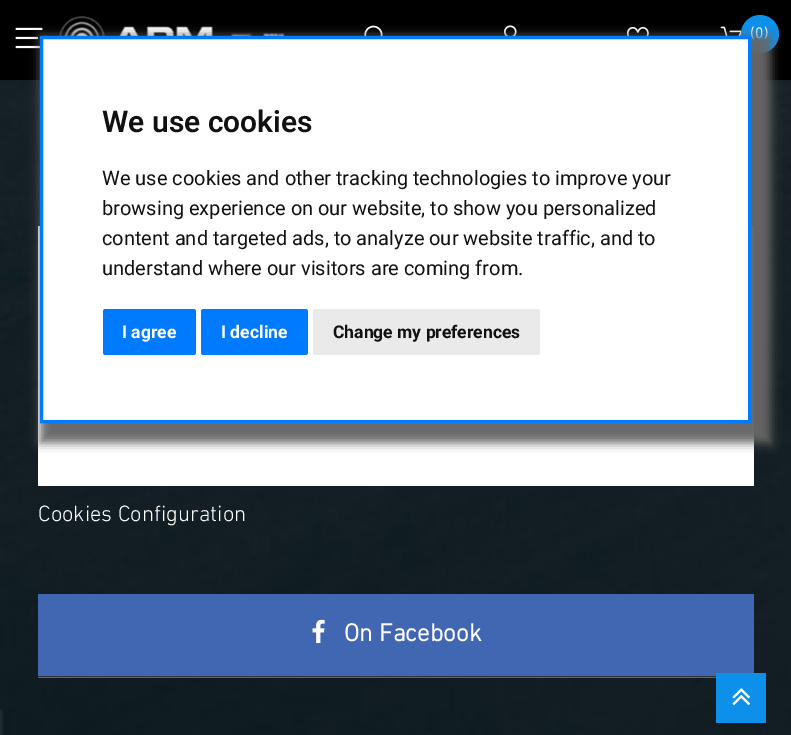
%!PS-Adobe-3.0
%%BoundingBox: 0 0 791 735
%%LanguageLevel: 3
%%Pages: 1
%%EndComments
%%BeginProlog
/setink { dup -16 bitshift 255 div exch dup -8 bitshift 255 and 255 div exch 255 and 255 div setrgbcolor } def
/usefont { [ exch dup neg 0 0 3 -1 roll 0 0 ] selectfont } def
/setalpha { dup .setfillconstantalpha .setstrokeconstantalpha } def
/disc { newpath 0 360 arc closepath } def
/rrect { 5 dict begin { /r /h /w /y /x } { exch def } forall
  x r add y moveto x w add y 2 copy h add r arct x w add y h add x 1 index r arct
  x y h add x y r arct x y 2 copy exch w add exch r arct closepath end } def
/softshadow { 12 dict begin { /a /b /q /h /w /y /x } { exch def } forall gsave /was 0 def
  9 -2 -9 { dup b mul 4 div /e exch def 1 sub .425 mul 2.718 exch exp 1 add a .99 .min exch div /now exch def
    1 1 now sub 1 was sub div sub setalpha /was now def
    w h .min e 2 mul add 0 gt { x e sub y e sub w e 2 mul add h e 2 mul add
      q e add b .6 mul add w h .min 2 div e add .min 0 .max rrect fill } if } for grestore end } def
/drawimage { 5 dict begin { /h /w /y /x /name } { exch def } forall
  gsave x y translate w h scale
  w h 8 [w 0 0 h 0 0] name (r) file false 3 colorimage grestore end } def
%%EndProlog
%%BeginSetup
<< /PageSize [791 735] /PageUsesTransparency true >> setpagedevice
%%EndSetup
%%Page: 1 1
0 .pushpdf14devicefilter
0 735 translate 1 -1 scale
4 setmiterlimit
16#FFFFFF setink
0 0 791 735 rectfill
(img9.raw) 0 80 791 655 drawimage
16#000000 setink
0 0 791 80 0 9.5 0.15 softshadow
0 0 791 80 rectfill
(img1.raw) 15 27 28 22 drawimage
(img2.raw) 59 16 154 20 drawimage
(img3.raw) 230 33 22 3 drawimage
(img4.raw) 263 33 22 3 drawimage
(img5.raw) 364 25 19 11 drawimage
(img6.raw) 504 25 13 11 drawimage
(img7.raw) 626 26 23 10 drawimage
(img8.raw) 720 26 22 10 drawimage
16#0C90EA setink
760 34 19 disc fill
/DINNext-Bold 15 usefont
16#FFFFFF setink
750 38 moveto 1 0 (\(0\)) ashow
38 226 716 260 rectfill
/DINNext-Light 22.5 usefont
38 521 moveto (Cookies Configuration) show
16#4267B2 setink
38 594 716 84 rectfill
16#333333 setink
38 676 678 1 rectfill
(img10.raw) 312 619 13 25 drawimage
/DINNext-Bold 25 usefont
16#FFFFFF setink
344 641 moveto (On Facebook) show
16#0C90EA setink
716 673 50 50 rectfill
(img11.raw) 732 688 18 17 drawimage
16#666666 setink
40 36 731 407 0 5 1 softshadow
16#FFFFFF setink
41.5 37.5 moveto 749.5 37.5 lineto 749.5 421.5 lineto 41.5 421.5 lineto closepath gsave fill grestore
16#007BFF setink
3 setlinewidth
stroke
/Roboto-SemiBold 30 usefont
16#111111 setink
102 132 moveto (We use cookies) show
/Roboto-Regular 20 usefont
[
    [(We use cookies and other tracking technologies to improve your) 102 185]
    [(browsing experience on our website, to show you personalized) 102 215]
    [(content and targeted ads, to analyze our website traffic, and to) 102 245]
    [(understand where our visitors are coming from.) 102 275]
] { aload pop moveto show } forall
16#007BFF setink
103 309 93 46 2.5 rrect fill
/Roboto-Bold 17.5 usefont
16#FFFFFF setink
122 338 moveto (I agree) show
16#007BFF setink
201 309 107 46 2.5 rrect fill
16#FFFFFF setink
221 338 moveto (I decline) show
16#EAEAEA setink
313 309 227 46 2.5 rrect fill
16#111111 setink
333 338 moveto (Change my preferences) show
.poppdf14devicefilter showpage
%%EOF
